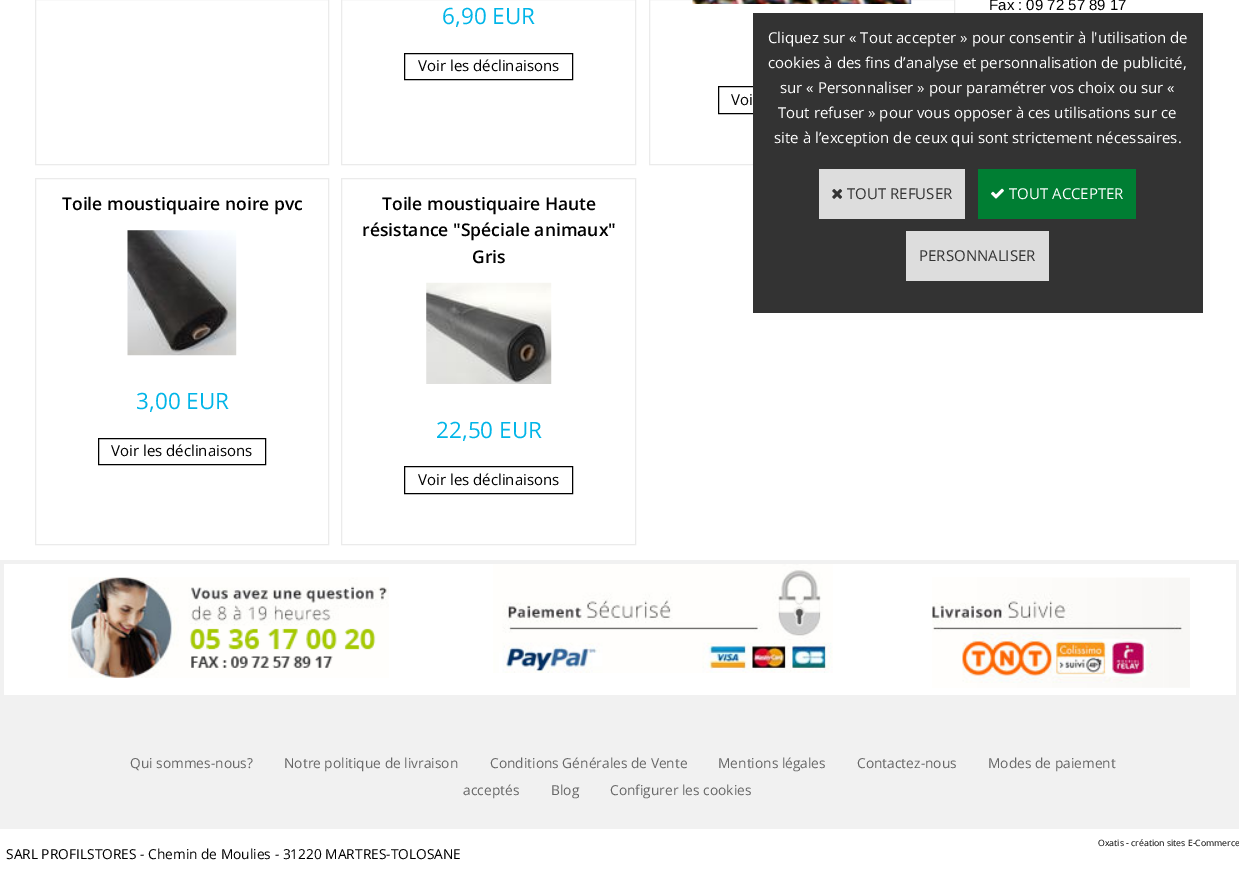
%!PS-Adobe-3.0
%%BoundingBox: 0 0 1239 878
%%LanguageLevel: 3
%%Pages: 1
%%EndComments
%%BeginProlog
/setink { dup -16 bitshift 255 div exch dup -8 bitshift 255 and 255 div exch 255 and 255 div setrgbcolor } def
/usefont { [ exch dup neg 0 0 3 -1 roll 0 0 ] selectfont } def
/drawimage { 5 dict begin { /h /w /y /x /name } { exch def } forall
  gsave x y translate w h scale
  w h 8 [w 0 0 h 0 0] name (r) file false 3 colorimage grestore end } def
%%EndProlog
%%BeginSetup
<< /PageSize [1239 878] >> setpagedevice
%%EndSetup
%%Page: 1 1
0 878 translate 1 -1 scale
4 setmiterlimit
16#FFFFFF setink
0 0 1239 878 rectfill
/LiberationSans-Regular 15 usefont
16#000000 setink
989 10 moveto (Fax : 09 72 57 89 17) show
16#EBEBEB setink
35.5 -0.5 293 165 rectstroke
341.5 -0.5 294 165 rectstroke
/OpenSans-Regular 22.5 usefont
16#01B5E8 setink
442 24 moveto (6,90 EUR) show
16#000000 setink
404.5 53.5 168 26 rectstroke
/OpenSans-Regular 15 usefont
418 71 moveto (Voir les déclinaisons) show
16#EBEBEB setink
649.5 -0.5 305 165 rectstroke
(img1.raw) 692 0 220 4 drawimage
16#000000 setink
718.5 86.5 167 27 rectstroke
731 105 moveto (Voi) show
16#EBEBEB setink
35.5 178.5 293 366 rectstroke
/OpenSans-SemiBold 17.5 usefont
16#000000 setink
62 210 moveto (Toile moustiquaire noire pvc) show
(img2.raw) 127 230 110 126 drawimage
/OpenSans-Regular 22.5 usefont
16#01B5E8 setink
136 409 moveto (3,00 EUR) show
16#000000 setink
98.5 438.5 167 26 rectstroke
/OpenSans-Regular 15 usefont
111 456 moveto (Voir les déclinaisons) show
16#EBEBEB setink
341.5 178.5 294 366 rectstroke
/OpenSans-SemiBold 17.5 usefont
16#000000 setink
[
    [(Toile moustiquaire Haute) 382 210]
    [(résistance "Spéciale animaux") 362 236]
    [(Gris) 472 263]
] { aload pop moveto show } forall
(img3.raw) 426 282 126 102 drawimage
/OpenSans-Regular 22.5 usefont
16#01B5E8 setink
436 438 moveto (22,50 EUR) show
16#000000 setink
404.5 466.5 168 27 rectstroke
/OpenSans-Regular 15 usefont
418 485 moveto (Voir les déclinaisons) show
16#333333 setink
753 13 450 300 rectfill
16#FFFFFF setink
[
    [(Cliquez sur « Tout accepter » pour consentir à l'utilisation de) 768 43]
    [(cookies à des fins d’analyse et personnalisation de publicité,) 768 68]
    [(sur « Personnaliser » pour paramétrer vos choix ou sur «) 780 93]
    [(Tout refuser » pour vous opposer à ces utilisations sur ce) 778 118]
    [(site à l’exception de ceux qui sont strictement nécessaires.) 774 143]
] { aload pop moveto show } forall
16#DDDDDD setink
819 169 146 50 rectfill
(img4.raw) 832 189 10 10 drawimage
16#333333 setink
847 199 moveto (TOUT REFUSER) show
16#007E33 setink
978 169 158 50 rectfill
(img5.raw) 991 188 13 11 drawimage
16#FFFFFF setink
1009 199 moveto (TOUT ACCEPTER) show
16#DDDDDD setink
906 231 143 50 rectfill
16#333333 setink
919 261 moveto (PERSONNALISER) show
16#F1F1F1 setink
0 560 1239 269 rectfill
16#FFFFFF setink
4 564 1232 131 rectfill
(img6.raw) 68 577 321 101 drawimage
(img7.raw) 493 564 340 109 drawimage
(img8.raw) 932 577 258 111 drawimage
/OpenSans-Regular 13.75 usefont
16#666666 setink
[
    [(Qui sommes-nous?) 130 768]
    [(Notre politique de livraison) 284 768]
    [(Conditions Générales de Vente) 490 768]
    [(Mentions légales) 718 768]
    [(Contactez-nous) 857 768]
    [(Modes de paiement) 988 768]
    [(acceptés) 463 795]
    [(Blog) 551 795]
    [(Configurer les cookies) 610 795]
] { aload pop moveto show } forall
/OpenSans-Regular 8.75 usefont
16#000000 setink
1098 846 moveto (Oxatis - création sites E-Commerce) show
/OpenSans-Regular 13.75 usefont
6 859 moveto (SARL PROFILSTORES - Chemin de Moulies - 31220 MARTRES-TOLOSANE) show
showpage
%%EOF
